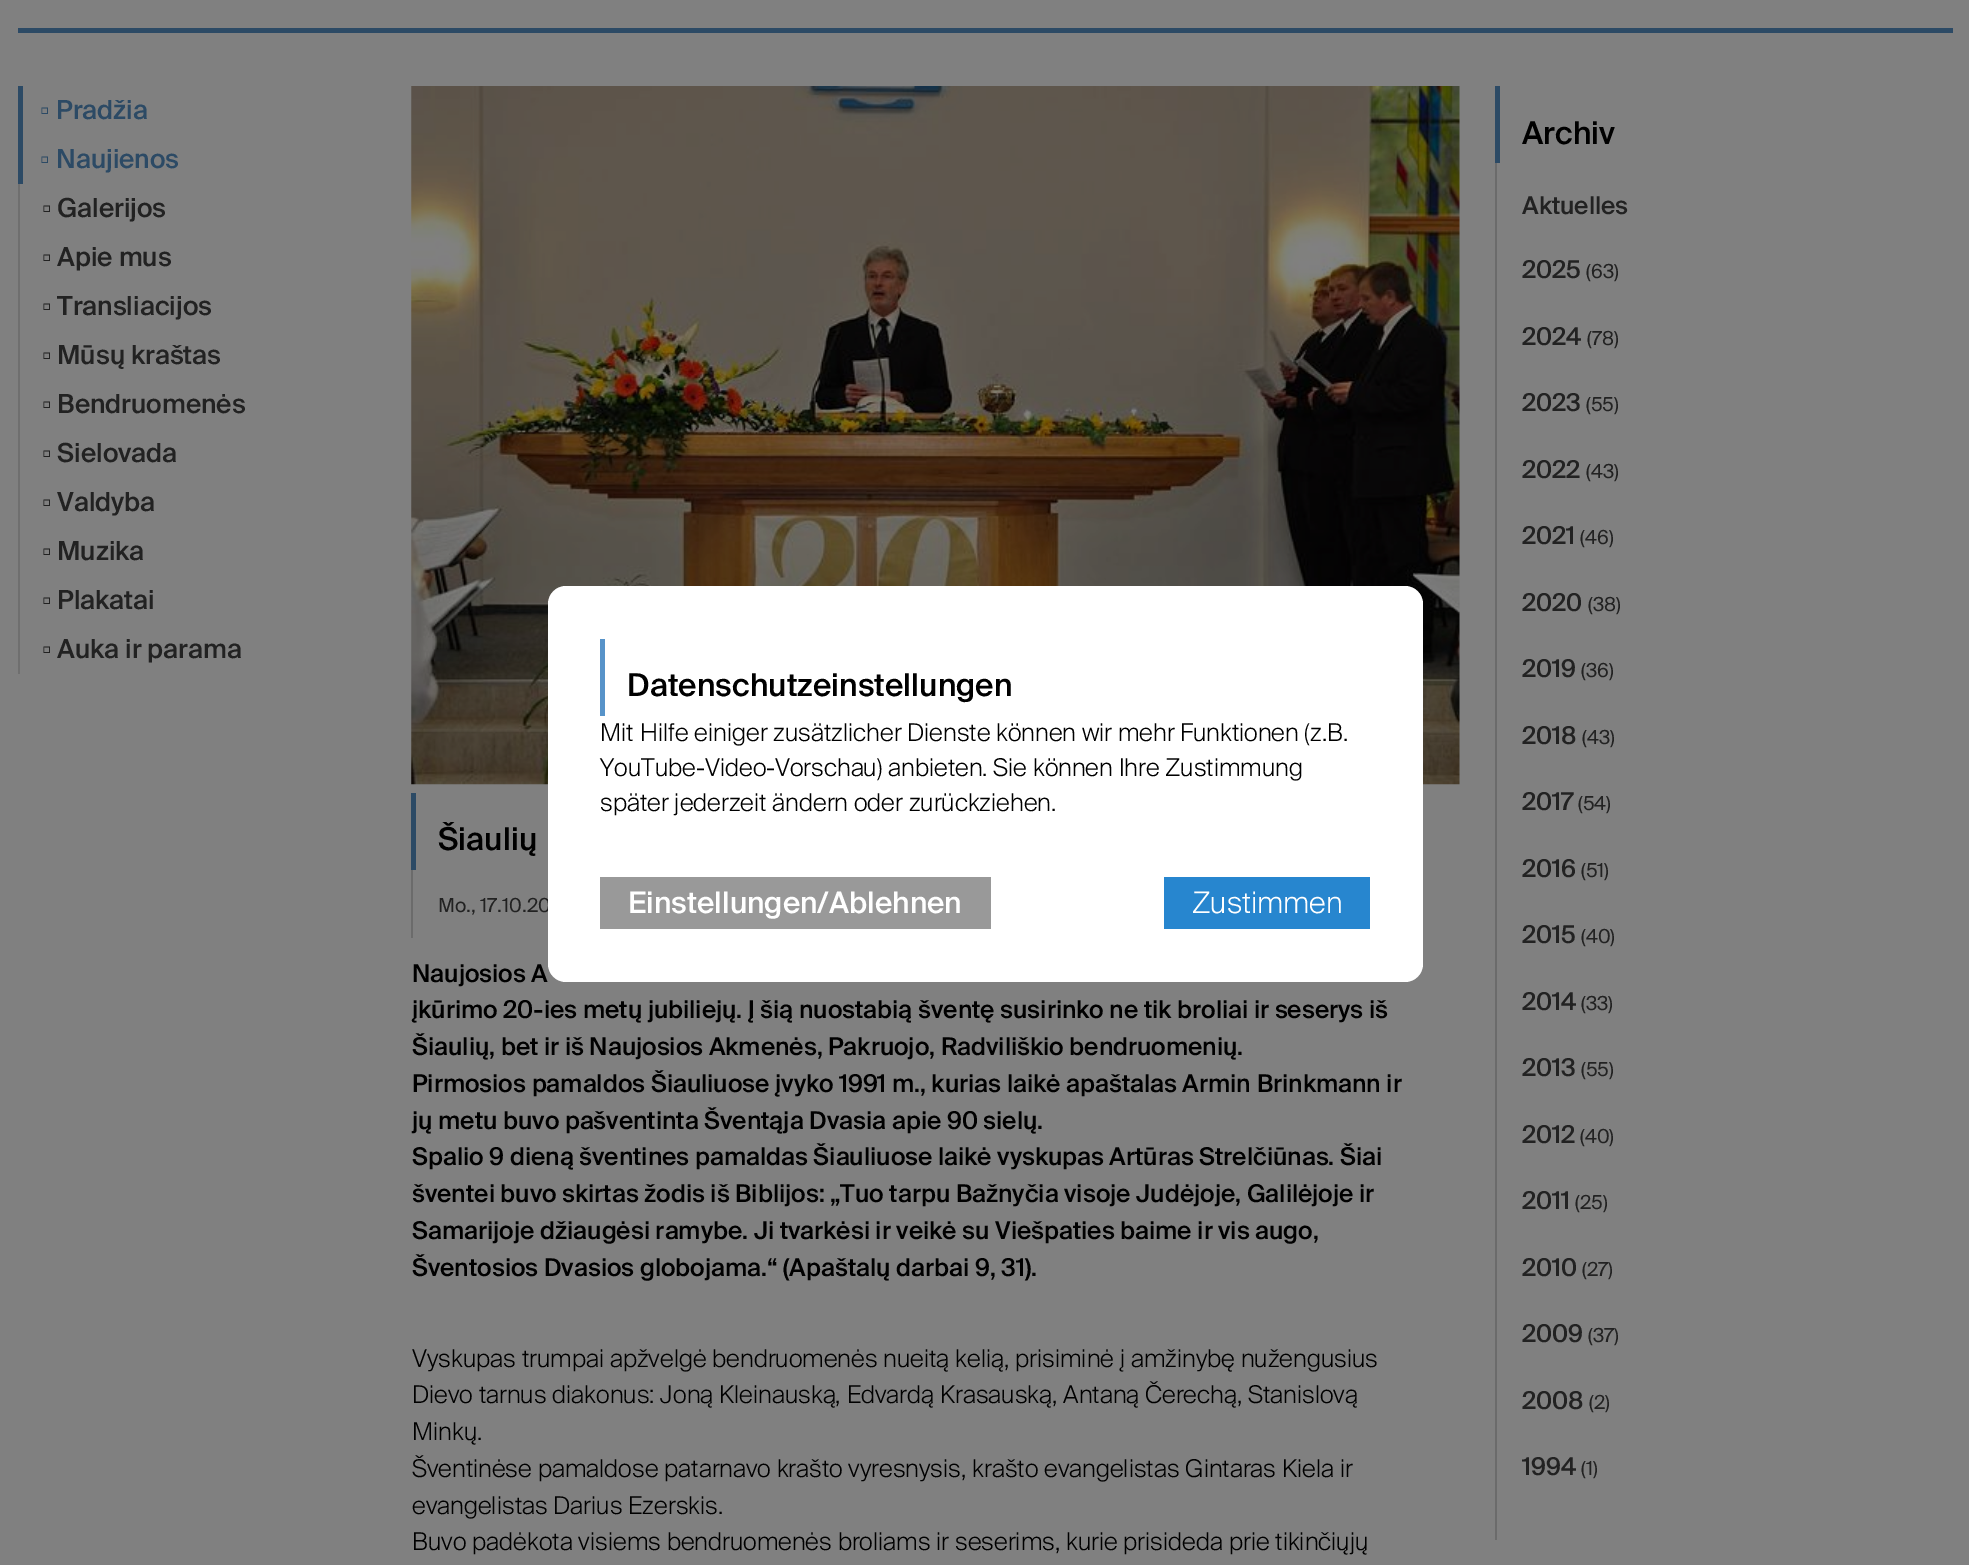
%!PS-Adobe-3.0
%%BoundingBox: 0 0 1969 1565
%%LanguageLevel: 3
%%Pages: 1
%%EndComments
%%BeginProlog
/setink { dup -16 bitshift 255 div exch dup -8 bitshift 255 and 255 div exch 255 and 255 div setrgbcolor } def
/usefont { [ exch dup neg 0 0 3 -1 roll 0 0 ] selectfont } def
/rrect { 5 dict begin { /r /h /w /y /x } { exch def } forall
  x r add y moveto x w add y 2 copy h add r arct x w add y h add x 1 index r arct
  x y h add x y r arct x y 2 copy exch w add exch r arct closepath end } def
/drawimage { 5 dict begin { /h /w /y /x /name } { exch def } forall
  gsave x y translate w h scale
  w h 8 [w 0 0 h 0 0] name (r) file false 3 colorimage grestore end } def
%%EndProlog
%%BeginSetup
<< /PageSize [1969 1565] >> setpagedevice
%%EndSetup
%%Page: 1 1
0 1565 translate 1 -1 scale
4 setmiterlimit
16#808080 setink
0 0 1969 1565 rectfill
16#2C4A65 setink
18 28 1935 5 rectfill
18 86 5 98 rectfill
/LiberationSerif-Regular 26.25 usefont
40 119 moveto (▫) show
/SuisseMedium-Medium 26.25 usefont
56 119 moveto (Pradžia) show
/LiberationSerif-Regular 26.25 usefont
40 168 moveto (▫) show
/SuisseMedium-Medium 26.25 usefont
56 168 moveto (Naujienos) show
16#6F6F6F setink
18 184 2 490 rectfill
/LiberationSerif-Regular 26.25 usefont
16#222222 setink
42 217 moveto (▫) show
/SuisseMedium-Medium 26.25 usefont
57 217 moveto (Galerijos) show
/LiberationSerif-Regular 26.25 usefont
42 266 moveto (▫) show
/SuisseMedium-Medium 26.25 usefont
57 266 moveto (Apie mus) show
/LiberationSerif-Regular 26.25 usefont
42 315 moveto (▫) show
/SuisseMedium-Medium 26.25 usefont
57 315 moveto (Transliacijos) show
/LiberationSerif-Regular 26.25 usefont
42 364 moveto (▫) show
/SuisseMedium-Medium 26.25 usefont
57 364 moveto (Mūsų kraštas) show
/LiberationSerif-Regular 26.25 usefont
42 413 moveto (▫) show
/SuisseMedium-Medium 26.25 usefont
57 413 moveto (Bendruomenės) show
/LiberationSerif-Regular 26.25 usefont
42 462 moveto (▫) show
/SuisseMedium-Medium 26.25 usefont
57 462 moveto (Sielovada) show
/LiberationSerif-Regular 26.25 usefont
42 511 moveto (▫) show
/SuisseMedium-Medium 26.25 usefont
57 511 moveto (Valdyba) show
/LiberationSerif-Regular 26.25 usefont
42 560 moveto (▫) show
/SuisseMedium-Medium 26.25 usefont
57 560 moveto (Muzika) show
/LiberationSerif-Regular 26.25 usefont
42 609 moveto (▫) show
/SuisseMedium-Medium 26.25 usefont
57 609 moveto (Plakatai) show
/LiberationSerif-Regular 26.25 usefont
42 658 moveto (▫) show
/SuisseMedium-Medium 26.25 usefont
57 658 moveto (Auka ir parama) show
(img1.raw) 411 86 1049 699 drawimage
16#2C4A65 setink
411 793 5 77 rectfill
/SuisseMedium-Medium 31.5 usefont
16#000000 setink
438 850 moveto (Šiaulių) show
16#6B6B6B setink
411 870 2 68 rectfill
/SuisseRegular-Regular 19.25 usefont
16#222222 setink
438 912 moveto (Mo., 17.10.20) show
/SuisseMedium-Medium 24.5 usefont
16#000000 setink
[
    [(Naujosios A) 412 982]
    [(įkūrimo 20-ies metų jubiliejų. Į šią nuostabią šventę susirinko ne tik broliai ir seserys iš) 412 1018]
    [(Šiaulių, bet ir iš Naujosios Akmenės, Pakruojo, Radviliškio bendruomenių.) 412 1055]
    [(Pirmosios pamaldos Šiauliuose įvyko 1991 m., kurias laikė apaštalas Armin Brinkmann ir) 412 1092]
    [(jų metu buvo pašventinta Šventąja Dvasia apie 90 sielų.) 412 1129]
    [(Spalio 9 dieną šventines pamaldas Šiauliuose laikė vyskupas Artūras Strelčiūnas. Šiai) 412 1165]
    [(šventei buvo skirtas žodis iš Biblijos: „Tuo tarpu Bažnyčia visoje Judėjoje, Galilėjoje ir) 412 1202]
    [(Samarijoje džiaugėsi ramybe. Ji tvarkėsi ir veikė su Viešpaties baime ir vis augo,) 412 1239]
    [(Šventosios Dvasios globojama.“ \(Apaštalų darbai 9, 31\).) 412 1276]
] { aload pop moveto show } forall
/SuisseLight-Light 24.5 usefont
[
    [(Vyskupas trumpai apžvelgė bendruomenės nueitą kelią, prisiminė į amžinybę nužengusius) 412 1367]
    [(Dievo tarnus diakonus: Joną Kleinauską, Edvardą Krasauską, Antaną Čerechą, Stanislovą) 412 1403]
    [(Minkų.) 412 1440]
    [(Šventinėse pamaldose patarnavo krašto vyresnysis, krašto evangelistas Gintaras Kiela ir) 412 1477]
    [(evangelistas Darius Ezerskis.) 412 1514]
    [(Buvo padėkota visiems bendruomenės broliams ir seserims, kurie prisideda prie tikinčiųjų) 412 1550]
] { aload pop moveto show } forall
16#2C4A65 setink
1495 86 5 77 rectfill
/SuisseMedium-Medium 31.5 usefont
16#000000 setink
1522 144 moveto (Archiv) show
16#6B6B6B setink
1495 163 2 1377 rectfill
/SuisseMedium-Medium 24.5 usefont
16#222222 setink
1522 214 moveto (Aktuelles) show
1522 278 moveto (2025) show
/SuisseRegular-Regular 19.25 usefont
1586 278 moveto (\(63\)) show
/SuisseMedium-Medium 24.5 usefont
1522 345 moveto (2024) show
/SuisseRegular-Regular 19.25 usefont
1587 345 moveto (\(78\)) show
/SuisseMedium-Medium 24.5 usefont
1522 411 moveto (2023) show
/SuisseRegular-Regular 19.25 usefont
1586 411 moveto (\(55\)) show
/SuisseMedium-Medium 24.5 usefont
1522 478 moveto (2022) show
/SuisseRegular-Regular 19.25 usefont
1586 478 moveto (\(43\)) show
/SuisseMedium-Medium 24.5 usefont
1522 544 moveto (2021) show
/SuisseRegular-Regular 19.25 usefont
1580 544 moveto (\(46\)) show
/SuisseMedium-Medium 24.5 usefont
1522 611 moveto (2020) show
/SuisseRegular-Regular 19.25 usefont
1588 611 moveto (\(38\)) show
/SuisseMedium-Medium 24.5 usefont
1522 677 moveto (2019) show
/SuisseRegular-Regular 19.25 usefont
1581 677 moveto (\(36\)) show
/SuisseMedium-Medium 24.5 usefont
1522 744 moveto (2018) show
/SuisseRegular-Regular 19.25 usefont
1582 744 moveto (\(43\)) show
/SuisseMedium-Medium 24.5 usefont
1522 810 moveto (2017) show
/SuisseRegular-Regular 19.25 usefont
1578 810 moveto (\(54\)) show
/SuisseMedium-Medium 24.5 usefont
1522 877 moveto (2016) show
/SuisseRegular-Regular 19.25 usefont
1581 877 moveto (\(51\)) show
/SuisseMedium-Medium 24.5 usefont
1522 943 moveto (2015) show
/SuisseRegular-Regular 19.25 usefont
1581 943 moveto (\(40\)) show
/SuisseMedium-Medium 24.5 usefont
1522 1010 moveto (2014) show
/SuisseRegular-Regular 19.25 usefont
1581 1010 moveto (\(33\)) show
/SuisseMedium-Medium 24.5 usefont
1522 1076 moveto (2013) show
/SuisseRegular-Regular 19.25 usefont
1581 1076 moveto (\(55\)) show
/SuisseMedium-Medium 24.5 usefont
1522 1143 moveto (2012) show
/SuisseRegular-Regular 19.25 usefont
1580 1143 moveto (\(40\)) show
/SuisseMedium-Medium 24.5 usefont
1522 1209 moveto (2011) show
/SuisseRegular-Regular 19.25 usefont
1575 1209 moveto (\(25\)) show
/SuisseMedium-Medium 24.5 usefont
1522 1276 moveto (2010) show
/SuisseRegular-Regular 19.25 usefont
1582 1276 moveto (\(27\)) show
/SuisseMedium-Medium 24.5 usefont
1522 1342 moveto (2009) show
/SuisseRegular-Regular 19.25 usefont
1588 1342 moveto (\(37\)) show
/SuisseMedium-Medium 24.5 usefont
1522 1409 moveto (2008) show
/SuisseRegular-Regular 19.25 usefont
1589 1409 moveto (\(2\)) show
/SuisseMedium-Medium 24.5 usefont
1522 1475 moveto (1994) show
/SuisseRegular-Regular 19.25 usefont
1581 1475 moveto (\(1\)) show
16#FFFFFF setink
548 586 875 396 18 rrect fill
16#5793C9 setink
600 639 5 77 rectfill
/SuisseMedium-Medium 31.5 usefont
16#000000 setink
627 696 moveto (Datenschutzeinstellungen) show
/SuisseLight-Light 24.5 usefont
[
    [(Mit Hilfe einiger zusätzlicher Dienste können wir mehr Funktionen \(z.B.) 600 741]
    [(YouTube-Video-Vorschau\) anbieten. Sie können Ihre Zustimmung) 600 776]
    [(später jederzeit ändern oder zurückziehen.) 600 811]
] { aload pop moveto show } forall
16#999999 setink
600 877 391 52 rectfill
/SuisseMedium-Medium 29.75 usefont
16#FFFFFF setink
628 913 moveto (Einstellungen/Ablehnen) show
16#2786CF setink
1164 877 206 52 rectfill
/SuisseLight-Light 29.75 usefont
16#FFFFFF setink
1192 913 moveto (Zustimmen) show
showpage
%%EOF
